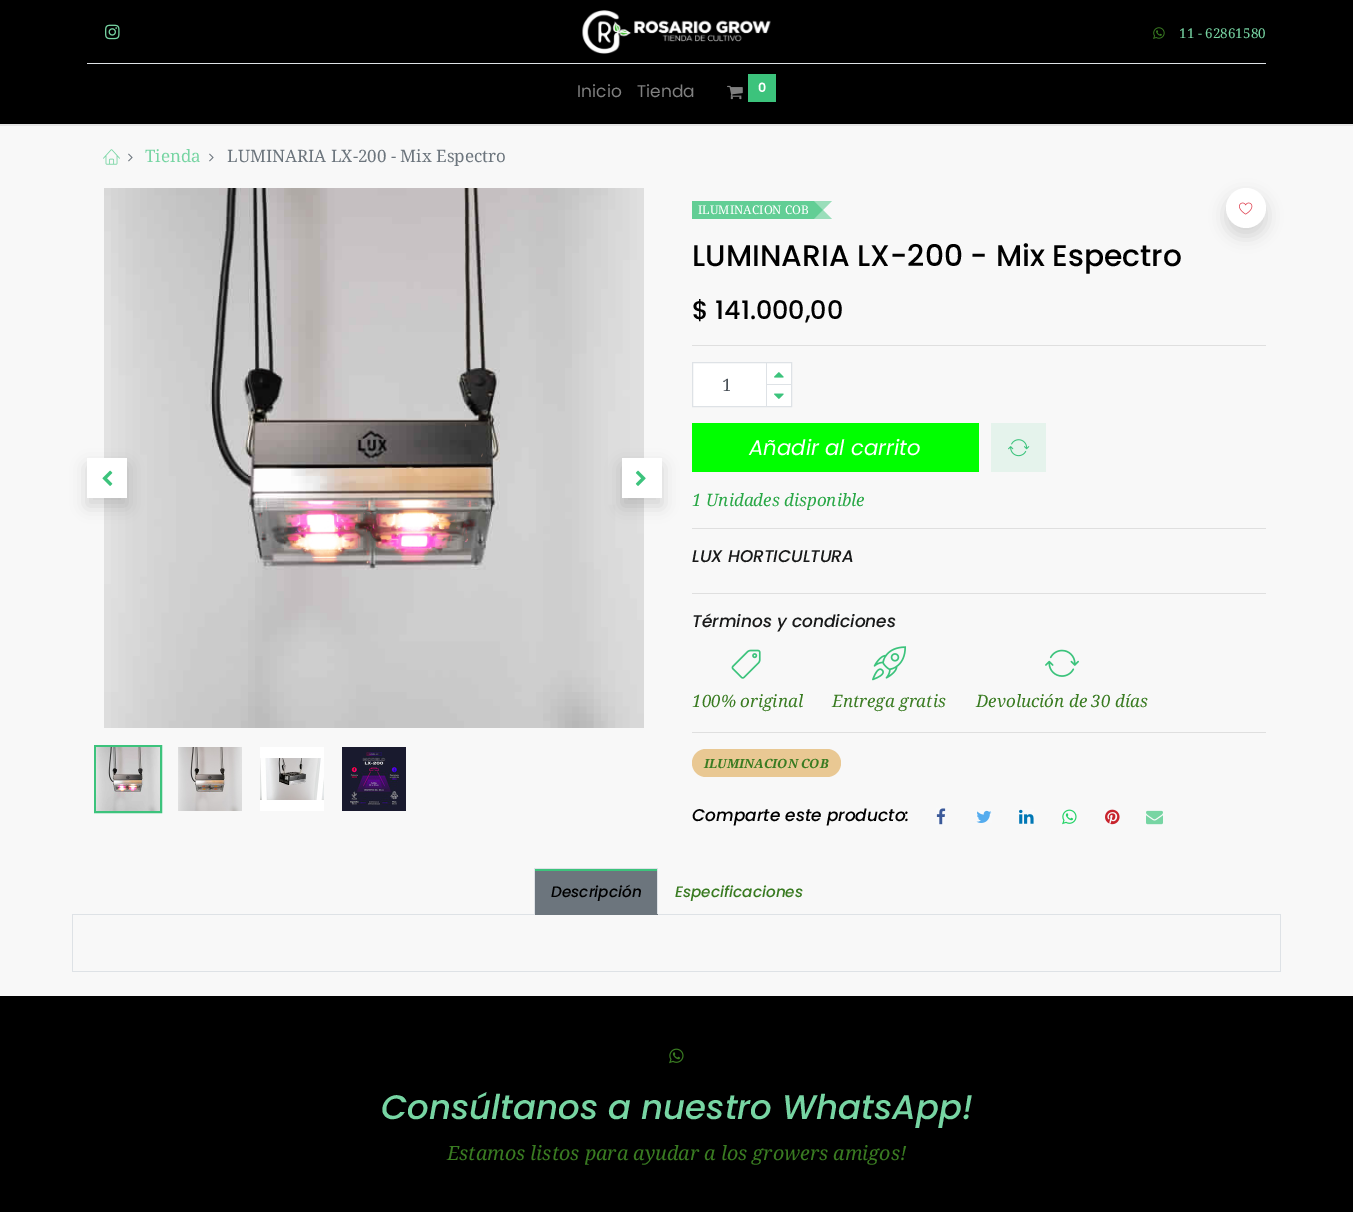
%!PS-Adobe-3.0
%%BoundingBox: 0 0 1353 1212
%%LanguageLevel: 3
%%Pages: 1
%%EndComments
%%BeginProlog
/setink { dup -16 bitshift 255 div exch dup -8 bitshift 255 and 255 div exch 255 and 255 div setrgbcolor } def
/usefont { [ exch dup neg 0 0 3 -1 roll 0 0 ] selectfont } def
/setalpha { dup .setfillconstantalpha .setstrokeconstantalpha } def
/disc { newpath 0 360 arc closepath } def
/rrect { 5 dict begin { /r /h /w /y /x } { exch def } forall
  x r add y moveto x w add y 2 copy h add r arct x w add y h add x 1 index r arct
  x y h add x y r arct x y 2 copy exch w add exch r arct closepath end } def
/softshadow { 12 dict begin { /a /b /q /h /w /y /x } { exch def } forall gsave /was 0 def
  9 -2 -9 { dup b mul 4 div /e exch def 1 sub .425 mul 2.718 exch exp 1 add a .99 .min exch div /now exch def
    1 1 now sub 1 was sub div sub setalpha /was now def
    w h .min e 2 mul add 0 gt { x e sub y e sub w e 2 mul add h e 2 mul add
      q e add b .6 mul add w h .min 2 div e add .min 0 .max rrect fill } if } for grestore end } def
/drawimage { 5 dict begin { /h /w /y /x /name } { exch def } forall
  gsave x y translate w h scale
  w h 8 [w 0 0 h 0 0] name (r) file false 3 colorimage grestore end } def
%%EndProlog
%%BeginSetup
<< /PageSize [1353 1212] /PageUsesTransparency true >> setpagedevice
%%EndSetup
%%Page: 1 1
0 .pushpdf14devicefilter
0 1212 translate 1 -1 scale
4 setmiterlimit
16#F8F8F8 setink
0 0 1353 1212 rectfill
16#E5E5E5 setink
0 124 1353 2 rectfill
16#000000 setink
0 0 1353 124 rectfill
(img1.raw) 105 24 15 16 drawimage
(img2.raw) 582 10 189 44 drawimage
(img3.raw) 1153 27 12 12 drawimage
/NotoSerif-Regular 13.5 usefont
16#77D5A3 setink
1179 38 moveto (11 - 62861580) show
16#DEE2E6 setink
87 63 1179 1 rectfill
/Poppins-Regular 17 usefont
16#808080 setink
577 97 moveto (Inicio) show
637 97 moveto (Tienda) show
(img4.raw) 727 85 16 15 drawimage
16#3CC37C setink
748 74 28 28 rectfill
/Poppins-SemiBold 12.75 usefont
16#FFFFFF setink
758 92 moveto (0) show
(img5.raw) 103 149 17 16 drawimage
(img6.raw) 128 153 5 9 drawimage
/NotoSerif-Regular 17 usefont
16#77D5A3 setink
145 162 moveto (Tienda) show
(img6.raw) 209 153 5 9 drawimage
16#6C757D setink
227 162 moveto (LUMINARIA LX-200 - Mix Espectro) show
(img7.raw) 104 188 540 540 drawimage
16#000000 setink
87 466 40 40 0 8 0.15 softshadow
16#FFFFFF setink
87 458 40 40 rectfill
(img8.raw) 102 470 11 16 drawimage
16#000000 setink
622 466 40 40 0 8 0.15 softshadow
16#FFFFFF setink
622 458 40 40 rectfill
(img9.raw) 635 470 11 16 drawimage
16#3CC37C setink
2 setlinewidth
95 746 66 66 rectstroke
(img10.raw) 96 747 64 64 drawimage
(img11.raw) 178 747 64 64 drawimage
16#FFFFFF setink
260 747 64 64 rectfill
(img12.raw) 260 758 64 42 drawimage
(img13.raw) 342 747 64 64 drawimage
16#62CE95 setink
692 201 122 18 rectfill
/NotoSerif-Regular 12 usefont
16#FFFFFF setink
698 214 moveto (ILUMINACION COB) show
16#9ADEBA setink
814 201 moveto 832 201 lineto 823 210 lineto closepath 832 219 moveto 814 219 lineto 823 210 lineto closepath fill
0.8 setalpha
16#3CC37C setink
814 219 moveto 814 201 lineto 823 210 lineto closepath fill
/Poppins-Medium 29.75 usefont
1 setalpha
16#000000 setink
692 266 moveto (LUMINARIA LX-200 - Mix Espectro) show
/Poppins-Medium 25.5 usefont
692 319 moveto ($ 141.000,00) show
16#DFDFDF setink
692 345 574 1 rectfill
16#FFFFFF setink
692.5 362.5 moveto 791.5 362.5 lineto 791.5 406.5 lineto 692.5 406.5 lineto closepath gsave fill grestore
16#DEE2E6 setink
1 setlinewidth
stroke
/NotoSerif-Regular 17 usefont
16#495057 setink
722 391 moveto (1) show
[
    [766 384 1 22 16#DEE2E6]
    [766 384 25 1 16#DEE2E6]
    [766 363 1 22 16#DEE2E6]
] { aload pop setink rectfill } forall
(img14.raw) 774 372 10 6 drawimage
(img15.raw) 774 393 10 6 drawimage
16#00FF00 setink
692 423 287 49 rectfill
/Poppins-Italic 21.25 usefont
16#FFFFFF setink
749 455 moveto (Añadir al carrito) show
16#000000 setink
1226 196 40 40 20 8 0.15 softshadow
16#FFFFFF setink
1246 208 20 disc fill
(img16.raw) 1239 202 14 13 drawimage
16#E5F3EC setink
991 423 55 49 rectfill
(img17.raw) 1008 439 22 18 drawimage
/NotoSerif-Italic 17 usefont
16#28A745 setink
692 506 moveto (1 Unidades disponible) show
16#DFDFDF setink
692 528 574 1 rectfill
/Poppins-MediumItalic 17 usefont
16#191A1A setink
692 562 moveto (LUX HORTICULTURA) show
16#DFDFDF setink
692 593 574 1 rectfill
16#191A1A setink
692 627 moveto (Términos y condiciones) show
(img18.raw) 731 649 30 30 drawimage
/NotoSerif-Italic 17 usefont
16#397B21 setink
692 707 moveto (100% original) show
(img19.raw) 872 646 35 35 drawimage
832 707 moveto (Entrega gratis) show
(img20.raw) 1045 649 34 28 drawimage
976 707 moveto (Devolución de 30 días) show
16#DFDFDF setink
692 732 574 1 rectfill
16#E9C893 setink
692 749 149 28 14 rrect fill
/NotoSerif-BoldItalic 12.75 usefont
16#397B21 setink
704 768 moveto (ILUMINACION COB) show
/Poppins-MediumItalic 17 usefont
16#000000 setink
692 821 moveto (Comparte este producto:) show
(img21.raw) 936 808 10 17 drawimage
(img22.raw) 976 810 16 13 drawimage
(img23.raw) 1019 809 15 15 drawimage
(img24.raw) 1062 809 15 16 drawimage
(img25.raw) 1105 809 15 16 drawimage
(img26.raw) 1146 810 17 15 drawimage
[
    [72 914 1209 1 16#DEE2E6]
    [535 871 122 43 16#6C757D]
    [535 869 122 2 16#3CC37C]
    [534 868 124 1 16#DEE2E6]
    [657 868 1 47 16#DEE2E6]
    [534 914 124 1 16#6C757D]
    [534 868 1 47 16#DEE2E6]
] { aload pop setink rectfill } forall
/Poppins-MediumItalic 15.25 usefont
16#000000 setink
551 897 moveto (Descripción) show
16#397B21 setink
675 897 moveto (Especificaciones) show
[
    [1280 915 1 57 16#DEE2E6]
    [72 971 1209 1 16#DEE2E6]
    [72 915 1 57 16#DEE2E6]
    [0 996 1353 216 16#000000]
] { aload pop setink rectfill } forall
(img27.raw) 669 1048 15 16 drawimage
/Poppins-MediumItalic 34 usefont
16#77D5A3 setink
381 1119 moveto (Consúltanos a nuestro WhatsApp!) show
/NotoSerif-Italic 19.75 usefont
16#397B21 setink
447 1160 moveto (Estamos listos para ayudar a los growers amigos!) show
.poppdf14devicefilter showpage
%%EOF
